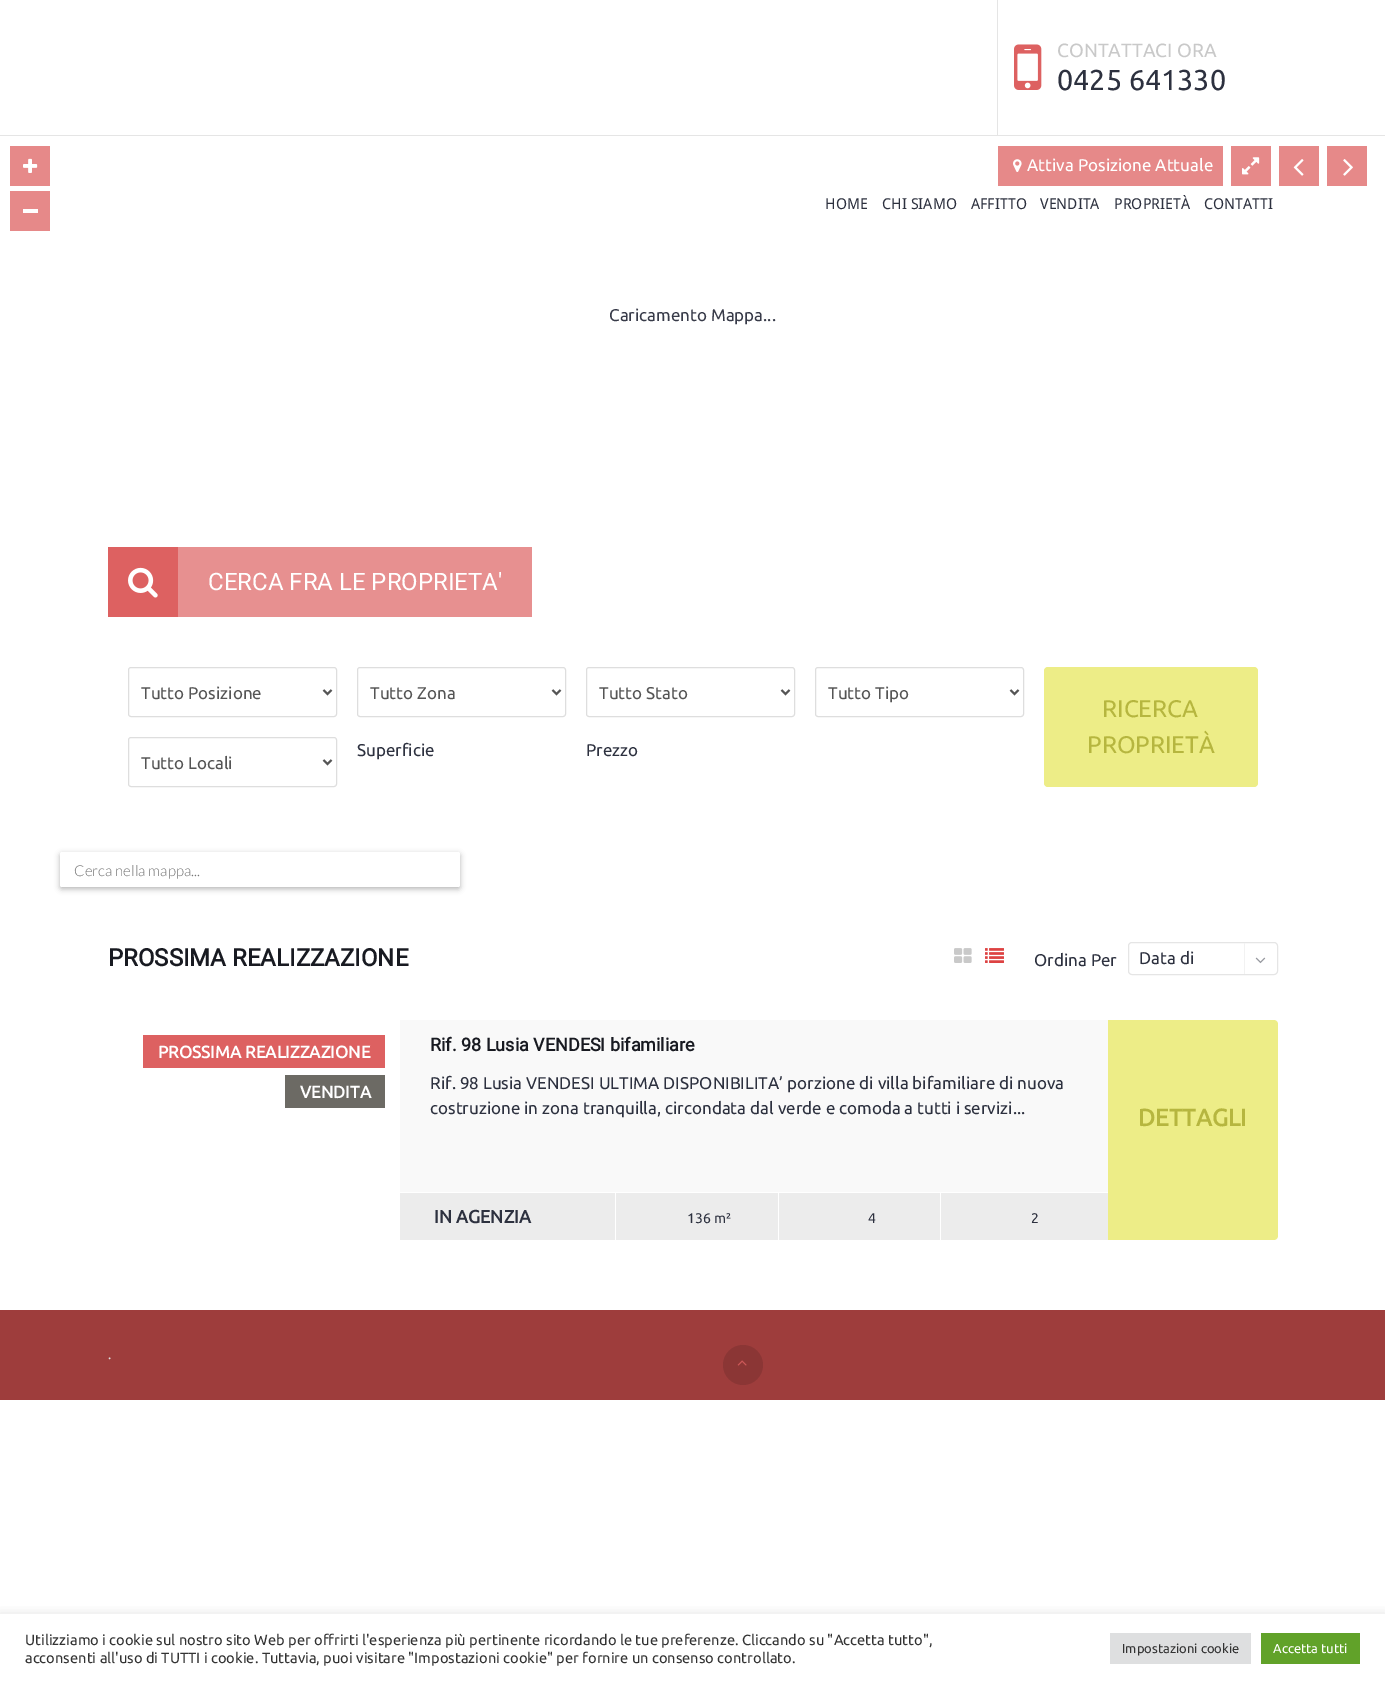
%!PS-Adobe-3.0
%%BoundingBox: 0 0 1385 1683
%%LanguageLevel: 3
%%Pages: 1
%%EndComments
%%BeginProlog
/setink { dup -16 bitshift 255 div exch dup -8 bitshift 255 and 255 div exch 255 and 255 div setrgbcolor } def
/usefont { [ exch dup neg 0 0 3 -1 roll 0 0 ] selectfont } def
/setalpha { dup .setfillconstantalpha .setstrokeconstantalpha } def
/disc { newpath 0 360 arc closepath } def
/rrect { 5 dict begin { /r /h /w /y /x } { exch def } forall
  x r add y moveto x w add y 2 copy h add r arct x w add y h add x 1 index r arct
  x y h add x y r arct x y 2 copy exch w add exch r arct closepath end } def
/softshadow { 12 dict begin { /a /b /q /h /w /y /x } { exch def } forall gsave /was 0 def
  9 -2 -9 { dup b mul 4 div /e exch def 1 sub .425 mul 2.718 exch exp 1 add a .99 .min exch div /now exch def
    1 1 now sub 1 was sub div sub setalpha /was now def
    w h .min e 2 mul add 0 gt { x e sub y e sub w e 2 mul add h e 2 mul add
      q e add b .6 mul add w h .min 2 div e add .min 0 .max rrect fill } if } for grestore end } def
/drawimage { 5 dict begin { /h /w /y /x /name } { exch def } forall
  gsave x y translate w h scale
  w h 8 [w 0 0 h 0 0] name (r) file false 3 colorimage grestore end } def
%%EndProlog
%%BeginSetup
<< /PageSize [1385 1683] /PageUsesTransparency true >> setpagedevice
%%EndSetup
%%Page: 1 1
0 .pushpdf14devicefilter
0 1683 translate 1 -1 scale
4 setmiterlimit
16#FFFFFF setink
0 0 1385 1683 rectfill
16#E5E5E5 setink
0 135 1385 1 rectfill
997 0 1 136 rectfill
(img1.raw) 1014 44 28 46 drawimage
/Ubuntu-Regular 19.1 usefont
16#C9C9C9 setink
1057 57 moveto (CONTATTACI ORA) show
/Ubuntu-Regular 28.75 usefont
16#2D313F setink
1057 90 moveto (0425 641330) show
/DroidSans-Regular 15 usefont
[
    [(HOME) 825 209]
    [(CHI SIAMO) 882 209]
    [(AFFITTO) 971 209]
    [(VENDITA) 1040 209]
    [(PROPRIETÀ) 1114 209]
    [(CONTATTI) 1204 209]
] { aload pop moveto show } forall
16#E68989 setink
10 146 40 40 rectfill
(img2.raw) 23 158 15 15 drawimage
[
    [10 191 40 40 16#E68989]
    [23 209 15 4 16#FFFFFF]
    [998 146 225 40 16#E68989]
] { aload pop setink rectfill } forall
(img3.raw) 1013 159 9 13 drawimage
/Ubuntu-Regular 17 usefont
16#FFFFFF setink
1027 171 moveto (Attiva Posizione Attuale) show
16#E68989 setink
1231 146 40 40 rectfill
(img4.raw) 1242 157 18 18 drawimage
1279 146 40 40 rectfill
(img5.raw) 1293 159 11 17 drawimage
1327 146 40 40 rectfill
(img6.raw) 1343 159 10 17 drawimage
16#383B49 setink
609 321 moveto (Caricamento Mappa...) show
16#E79090 setink
178 547 354 70 rectfill
16#DD6161 setink
108 547 70 70 rectfill
(img7.raw) 128 567 30 31 drawimage
/Roboto-Regular 24 usefont
16#FFFFFF setink
208 590 moveto (CERCA FRA LE PROPRIETA') show
16#DEDEDE setink
128.5 667.5 208 49 2.5 rrect stroke
16#555555 setink
2 setlinewidth
323.5 690 moveto 327.5 694 lineto 331.5 690 lineto stroke
/Ubuntu-Regular 17 usefont
141 699 moveto (Tutto Posizione) show
16#DEDEDE setink
1 setlinewidth
357.5 667.5 208 49 2.5 rrect stroke
16#555555 setink
2 setlinewidth
552.5 690 moveto 556.5 694 lineto 560.5 690 lineto stroke
370 699 moveto (Tutto Zona) show
16#DEDEDE setink
1 setlinewidth
586.5 667.5 208 49 2.5 rrect stroke
16#555555 setink
2 setlinewidth
781.5 690 moveto 785.5 694 lineto 789.5 690 lineto stroke
599 699 moveto (Tutto Stato) show
16#DEDEDE setink
1 setlinewidth
815.5 667.5 208 49 2.5 rrect stroke
16#555555 setink
2 setlinewidth
1010.5 690 moveto 1014.5 694 lineto 1018.5 690 lineto stroke
828 699 moveto (Tutto Tipo) show
16#2D313F setink
357 756 moveto (Superficie) show
586 756 moveto (Prezzo) show
16#DEDEDE setink
1 setlinewidth
128.5 737.5 208 49 2.5 rrect stroke
16#555555 setink
2 setlinewidth
323.5 760 moveto 327.5 764 lineto 331.5 760 lineto stroke
141 769 moveto (Tutto Locali) show
16#EDED87 setink
1044 667 214 120 4 rrect fill
/Ubuntu-Regular 24 usefont
16#B6B63F setink
1102 717 moveto (RICERCA) show
1087 753 moveto (PROPRIETÀ) show
16#000000 setink
60 854 400 35 2 3 0.3 softshadow
16#FFFFFF setink
60 852 400 35 2 rrect fill
/Lato-Light 15 usefont
16#757575 setink
74 876 moveto (Cerca nella mappa...) show
/Roboto-Bold 24 usefont
16#181A21 setink
108 966 moveto (PROSSIMA REALIZZAZIONE) show
(img8.raw) 954 948 18 15 drawimage
(img9.raw) 985 948 19 15 drawimage
/Ubuntu-Regular 17 usefont
16#2D313F setink
1034 966 moveto (Ordina Per) show
16#E5E5E5 setink
1 setlinewidth
1128.5 942.5 149 32 3.5 rrect stroke
16#2D313F setink
1139 964 moveto (Data di) show
16#F2F2F2 setink
1244 943 1 31 rectfill
(img10.raw) 1255 957 11 7 drawimage
16#DD6161 setink
143 1035 242 33 rectfill
/Ubuntu-Bold 17 usefont
16#FFFFFF setink
158 1058 moveto (PROSSIMA REALIZZAZIONE) show
16#6C6A64 setink
285 1075 100 33 rectfill
16#FFFFFF setink
300 1098 moveto (VENDITA) show
16#F9F9F9 setink
400 1020 708 172 rectfill
/Roboto-Bold 18 usefont
16#181A21 setink
430 1051 moveto (Rif. 98 Lusia VENDESI bifamiliare) show
/Ubuntu-Regular 17 usefont
16#2D313F setink
430 1089 moveto (Rif. 98 Lusia VENDESI ULTIMA DISPONIBILITA’ porzione di villa bifamiliare di nuova) show
430 1114 moveto (costruzione in zona tranquilla, circondata dal verde e comoda a tutti i servizi...) show
16#ECECEC setink
400 1193 708 47 rectfill
16#FFFFFF setink
615 1193 1 47 rectfill
/Ubuntu-Bold 18 usefont
16#2D313F setink
434 1223 moveto (IN AGENZIA) show
16#FFFFFF setink
778 1193 1 47 rectfill
/Ubuntu-Regular 14 usefont
16#2D313F setink
687 1223 moveto (136 m²) show
16#FFFFFF setink
940 1193 1 47 rectfill
16#2D313F setink
868 1223 moveto (4) show
1031 1223 moveto (2) show
16#EDED87 setink
1108 1020 moveto 1274 1020 lineto 1276 1020 1278 1022 1278 1024 curveto 1278 1236 lineto 1278 1238 1276 1240 1274 1240 curveto 1108 1240 lineto closepath fill
/Ubuntu-Bold 24 usefont
16#B6B63F setink
1138 1126 moveto (DETTAGLI) show
16#9E3D3C setink
0 1310 1385 90 rectfill
/Ubuntu-Regular 13 usefont
16#E1E1E1 setink
108 1359 moveto (.) show
16#8B3635 setink
743 1365 20 disc fill
(img11.raw) 737 1360 10 6 drawimage
gsave
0 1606 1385 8 rectclip
16#ACABAB setink
0 1613 1385 69 0 5 0.3 softshadow
grestore
/Ubuntu-Regular 14.67 usefont
16#333333 setink
25 1645 moveto (Utilizziamo i cookie sul nostro sito Web per offrirti l'esperienza più pertinente ricordando le tue preferenze. Cliccando su "Accetta tutto",) show
25 1663 moveto (acconsenti all'uso di TUTTI i cookie. Tuttavia, puoi visitare "Impostazioni cookie" per fornire un consenso controllato.) show
16#DEDFE0 setink
1110 1633 141 31 rectfill
/Ubuntu-Regular 13 usefont
16#333333 setink
1122 1653 moveto (Impostazioni cookie) show
16#61A229 setink
1261 1633 99 31 rectfill
16#FFFFFF setink
1273 1653 moveto (Accetta tutti) show
.poppdf14devicefilter showpage
%%EOF
